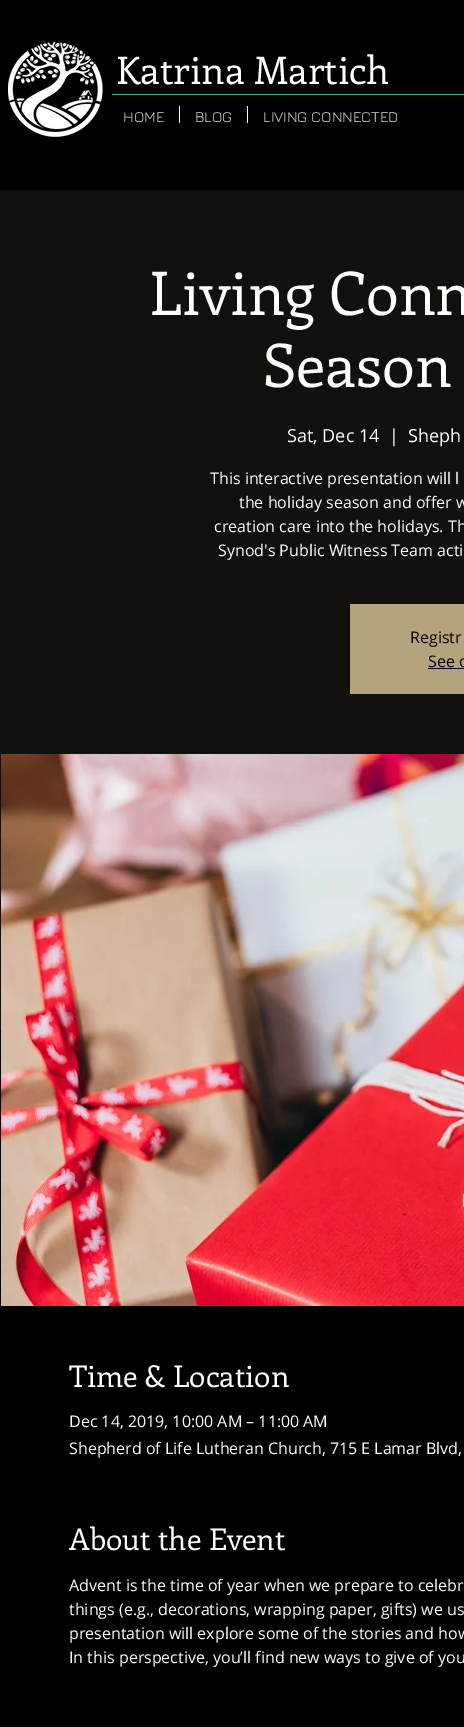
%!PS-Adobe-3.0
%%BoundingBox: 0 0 464 1727
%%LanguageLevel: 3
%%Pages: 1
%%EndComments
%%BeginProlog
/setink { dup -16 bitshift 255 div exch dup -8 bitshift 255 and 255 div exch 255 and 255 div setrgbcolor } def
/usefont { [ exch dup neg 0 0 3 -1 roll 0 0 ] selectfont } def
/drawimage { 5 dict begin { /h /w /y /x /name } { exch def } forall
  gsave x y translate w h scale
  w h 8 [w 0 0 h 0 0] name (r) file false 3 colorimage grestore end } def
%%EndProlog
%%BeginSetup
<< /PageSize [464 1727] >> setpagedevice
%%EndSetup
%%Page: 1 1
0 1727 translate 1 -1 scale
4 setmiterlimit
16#000000 setink
0 0 464 1727 rectfill
(img1.raw) 8 42 95 96 drawimage
/Enriqueta-Regular 38 usefont
16#FFFFFF setink
116 84 moveto (Katrina Martich) show
16#42A7B2 setink
112 94 352 1 rectfill
/Jura-Regular 15 usefont
16#E0DDDD setink
123 122 moveto (HOME) show
16#FFFFFF setink
179 106 1 17 rectfill
16#E0DDDD setink
195 122 moveto (BLOG) show
16#FFFFFF setink
247 106 1 17 rectfill
16#E0DDDD setink
263 122 moveto (LIVING CONNECTED) show
16#12100D setink
0 190 464 840 rectfill
/Enriqueta-Regular 60 usefont
16#FFFFFF setink
149 315 moveto (Living Conn) show
263 387 moveto (Season) show
/OpenSans-Regular 18 usefont
[
    [(Sat, Dec 14) 287 442]
    [(|) 389 442]
    [(Sheph) 408 442]
] { aload pop moveto show } forall
/OpenSans-Regular 16 usefont
[
    [(This interactive presentation will l) 210 484]
    [(the holiday season and offer w) 239 508]
    [(creation care into the holidays. Th) 214 532]
    [(Synod's Public Witness Team acti) 218 556]
] { aload pop moveto show } forall
16#B7A27E setink
350 604 114 90 rectfill
16#000000 setink
410 643 moveto (Registr) show
428 667 moveto (See o) show
428 668 36 1 rectfill
(img2.raw) 1 754 463 552 drawimage
/Enriqueta-Regular 30 usefont
16#FFFFFF setink
69 1387 moveto (Time & Location) show
/OpenSans-Regular 16 usefont
69 1427 moveto (Dec 14, 2019, 10:00 AM – 11:00 AM) show
69 1454 moveto (Shepherd of Life Lutheran Church, 715 E Lamar Blvd,) show
/Enriqueta-Regular 30 usefont
69 1550 moveto (About the Event) show
/OpenSans-Regular 16 usefont
[
    [(Advent is the time of year when we prepare to celebr) 69 1591]
    [(things \(e.g., decorations, wrapping paper, gifts\) we us) 69 1615]
    [(presentation will explore some of the stories and how) 69 1639]
    [(In this perspective, you’ll find new ways to give of you) 69 1663]
] { aload pop moveto show } forall
showpage
%%EOF
